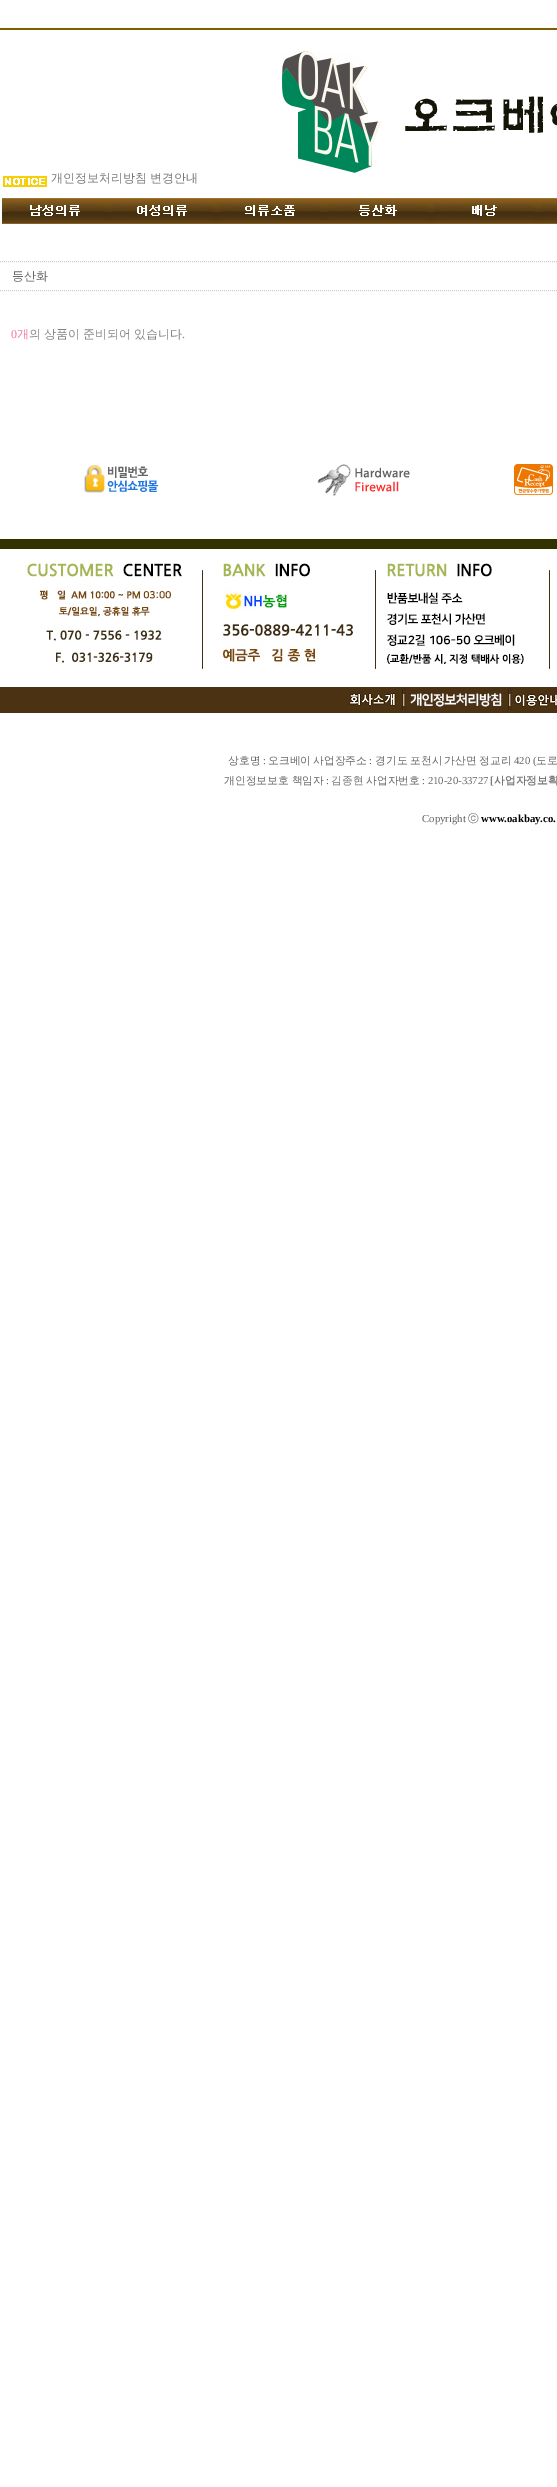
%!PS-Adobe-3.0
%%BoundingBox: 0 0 557 2487
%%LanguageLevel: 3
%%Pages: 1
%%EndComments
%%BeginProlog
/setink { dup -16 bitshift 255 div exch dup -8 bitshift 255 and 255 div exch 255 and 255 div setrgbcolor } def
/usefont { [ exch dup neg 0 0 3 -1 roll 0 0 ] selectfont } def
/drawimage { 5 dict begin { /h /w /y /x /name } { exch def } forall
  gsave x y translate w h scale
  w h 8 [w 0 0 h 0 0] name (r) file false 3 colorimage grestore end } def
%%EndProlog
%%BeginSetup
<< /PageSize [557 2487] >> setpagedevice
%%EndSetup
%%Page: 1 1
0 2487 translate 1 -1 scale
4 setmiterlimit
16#FFFFFF setink
0 0 557 2487 rectfill
(img1.raw) 0 24 557 6 drawimage
(img2.raw) 282 51 275 122 drawimage
(img3.raw) 3 176 44 11 drawimage
/WenQuanYiZenHei-Medium 12 usefont
16#777777 setink
51 182 moveto -0.5 0 32 (개인정보처리방침 변경안내) widthshow
(img4.raw) 2 198 107 26 drawimage
(img5.raw) 109 198 107 26 drawimage
(img6.raw) 216 198 108 26 drawimage
(img7.raw) 324 198 107 26 drawimage
(img8.raw) 431 198 107 26 drawimage
(img9.raw) 538 198 19 26 drawimage
16#CCCCCC setink
[1 1] 0 setdash
0 261.5 moveto 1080 261.5 lineto stroke
0 290.5 moveto 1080 290.5 lineto stroke
16#666666 setink
12 280 moveto (등산화) show
/LiberationSerif-Regular 12 usefont
16#F173A4 setink
11 338 moveto (0) show
/WenQuanYiZenHei-Medium 12 usefont
17 338 moveto (개) show
16#858585 setink
29 338 moveto -0.5 0 32 (의 상품이 준비되어 있습니다) widthshow
/LiberationSerif-Regular 12 usefont
182 338 moveto (.) show
(img10.raw) 84 465 74 28 drawimage
(img11.raw) 317 464 93 32 drawimage
(img12.raw) 514 464 39 31 drawimage
16#333300 setink
0 539 557 10 rectfill
(img13.raw) 24 562 526 112 drawimage
16#4B3213 setink
0 687 513 26 rectfill
(img14.raw) 346 687 55 24 drawimage
(img15.raw) 401 687 6 24 drawimage
(img16.raw) 410 688 92 21 drawimage
(img15.raw) 507 687 6 24 drawimage
(img17.raw) 513 687 44 26 drawimage
/WenQuanYiZenHei-Medium 10.75 usefont
16#666666 setink
228 764 moveto (상호명) show
/LiberationSerif-Regular 10.75 usefont
263 764 moveto (:) show
/WenQuanYiZenHei-Medium 10.75 usefont
268 764 moveto (오크베이) show
313 764 moveto (사업장주소) show
/LiberationSerif-Regular 10.75 usefont
369 764 moveto (:) show
/WenQuanYiZenHei-Medium 10.75 usefont
[
    [(경기도) 375 764]
    [(포천시) 410 764]
    [(가산면) 444 764]
    [(정교리) 479 764]
] { aload pop moveto show } forall
/LiberationSerif-Regular 10.75 usefont
514 764 moveto (420 \() show
/WenQuanYiZenHei-Medium 10.75 usefont
536 764 moveto (도로) show
224 784 moveto (개인정보보호 책임자) show
/LiberationSerif-Regular 10.75 usefont
326 784 moveto (:) show
/WenQuanYiZenHei-Medium 10.75 usefont
16#777777 setink
331 784 moveto (김종현) show
16#666666 setink
366 784 moveto (사업자번호) show
/LiberationSerif-Regular 10.75 usefont
422 784 moveto (: 210-20-33727) show
/LiberationSerif-Bold 10.75 usefont
16#777777 setink
490 784 moveto ([) show
/WenQuanYiZenHei-Bold 10.75 usefont
494 784 moveto (사업자정보확) show
/LiberationSerif-Regular 10.75 usefont
16#666666 setink
422 822 moveto (Copyright) show
/WenQuanYiZenHei-Medium 10.75 usefont
468 822 moveto (ⓒ) show
/LiberationSerif-Bold 10.75 usefont
16#000000 setink
481 822 moveto (www.oakbay.co.) show
showpage
%%EOF
